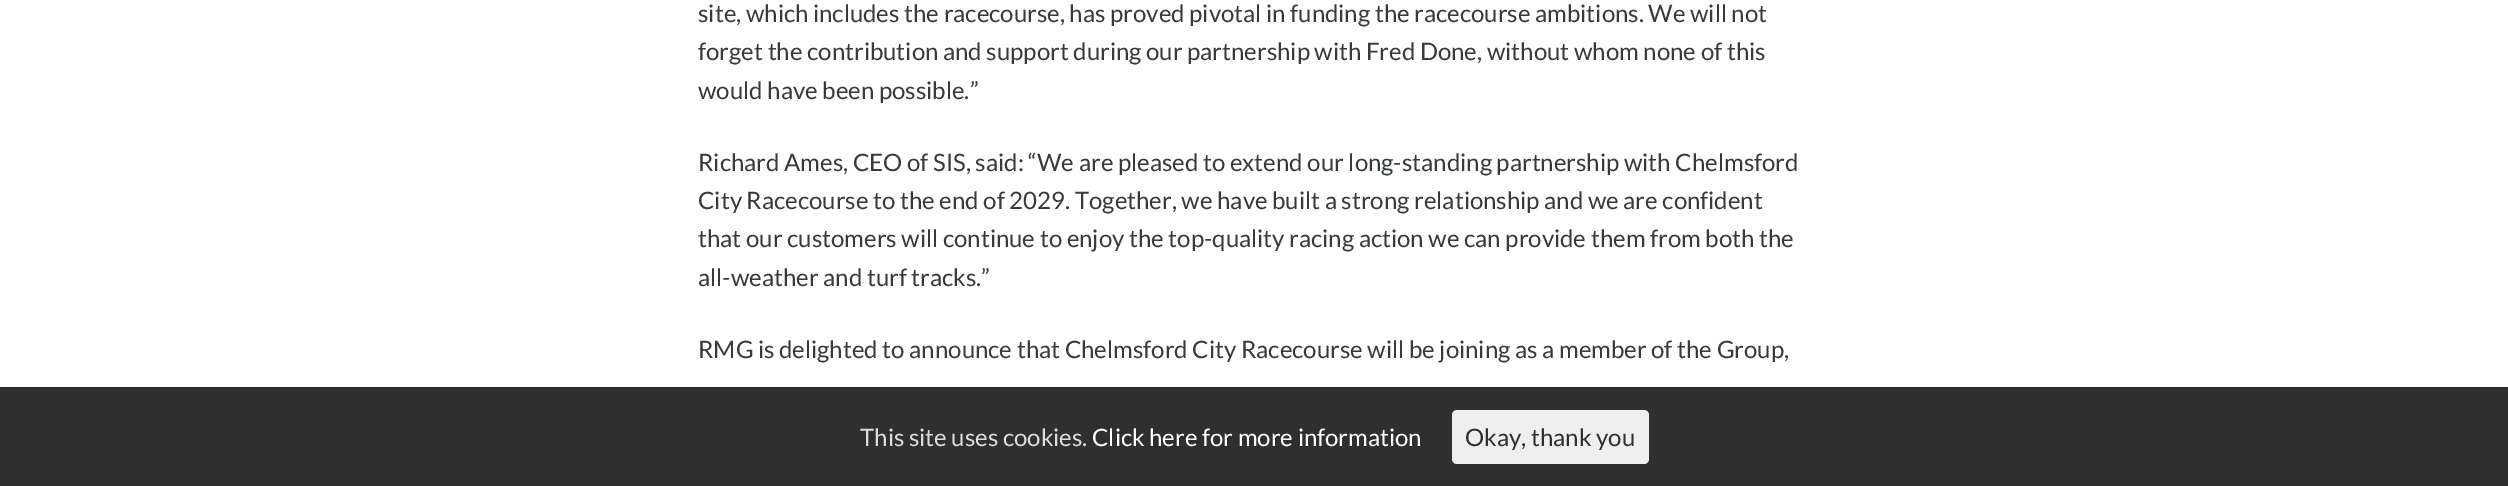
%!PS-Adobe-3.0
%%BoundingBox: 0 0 2508 486
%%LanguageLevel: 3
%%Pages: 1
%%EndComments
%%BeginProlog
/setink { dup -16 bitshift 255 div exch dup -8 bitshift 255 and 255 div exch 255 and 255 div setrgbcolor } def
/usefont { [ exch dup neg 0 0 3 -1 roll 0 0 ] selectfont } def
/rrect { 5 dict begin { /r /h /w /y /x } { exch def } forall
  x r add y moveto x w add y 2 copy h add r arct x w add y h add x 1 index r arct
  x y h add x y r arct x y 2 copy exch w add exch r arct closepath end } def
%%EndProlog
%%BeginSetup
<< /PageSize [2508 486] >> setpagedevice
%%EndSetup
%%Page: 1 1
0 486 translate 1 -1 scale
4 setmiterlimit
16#FFFFFF setink
0 0 2508 486 rectfill
/Lato-Regular 24 usefont
16#373A3C setink
[
    [(site, which includes the racecourse, has proved pivotal in funding the racecourse ambitions. We will not) 698 22]
    [(forget the contribution and support during our partnership with Fred Done, without whom none of this) 698 60]
    [(would have been possible.”) 698 99]
    [(Richard Ames, CEO of SIS, said: “We are pleased to extend our long-standing partnership with Chelmsford) 698 171]
    [(City Racecourse to the end of 2029. Together, we have built a strong relationship and we are confident) 698 209]
    [(that our customers will continue to enjoy the top-quality racing action we can provide them from both the) 698 247]
    [(all-weather and turf tracks.”) 698 286]
    [(RMG is delighted to announce that Chelmsford City Racecourse will be joining as a member of the Group,) 698 358]
] { aload pop moveto show } forall
16#2F2F2F setink
0 387 2508 99 rectfill
16#DDDDDD setink
860 446 moveto (This site uses cookies.) show
16#FFFFFF setink
1092 446 moveto (Click here for more information) show
16#EFEFEF setink
1452 410 197 54 5 rrect fill
16#2F2F2F setink
1465 446 moveto (Okay, thank you) show
showpage
%%EOF
